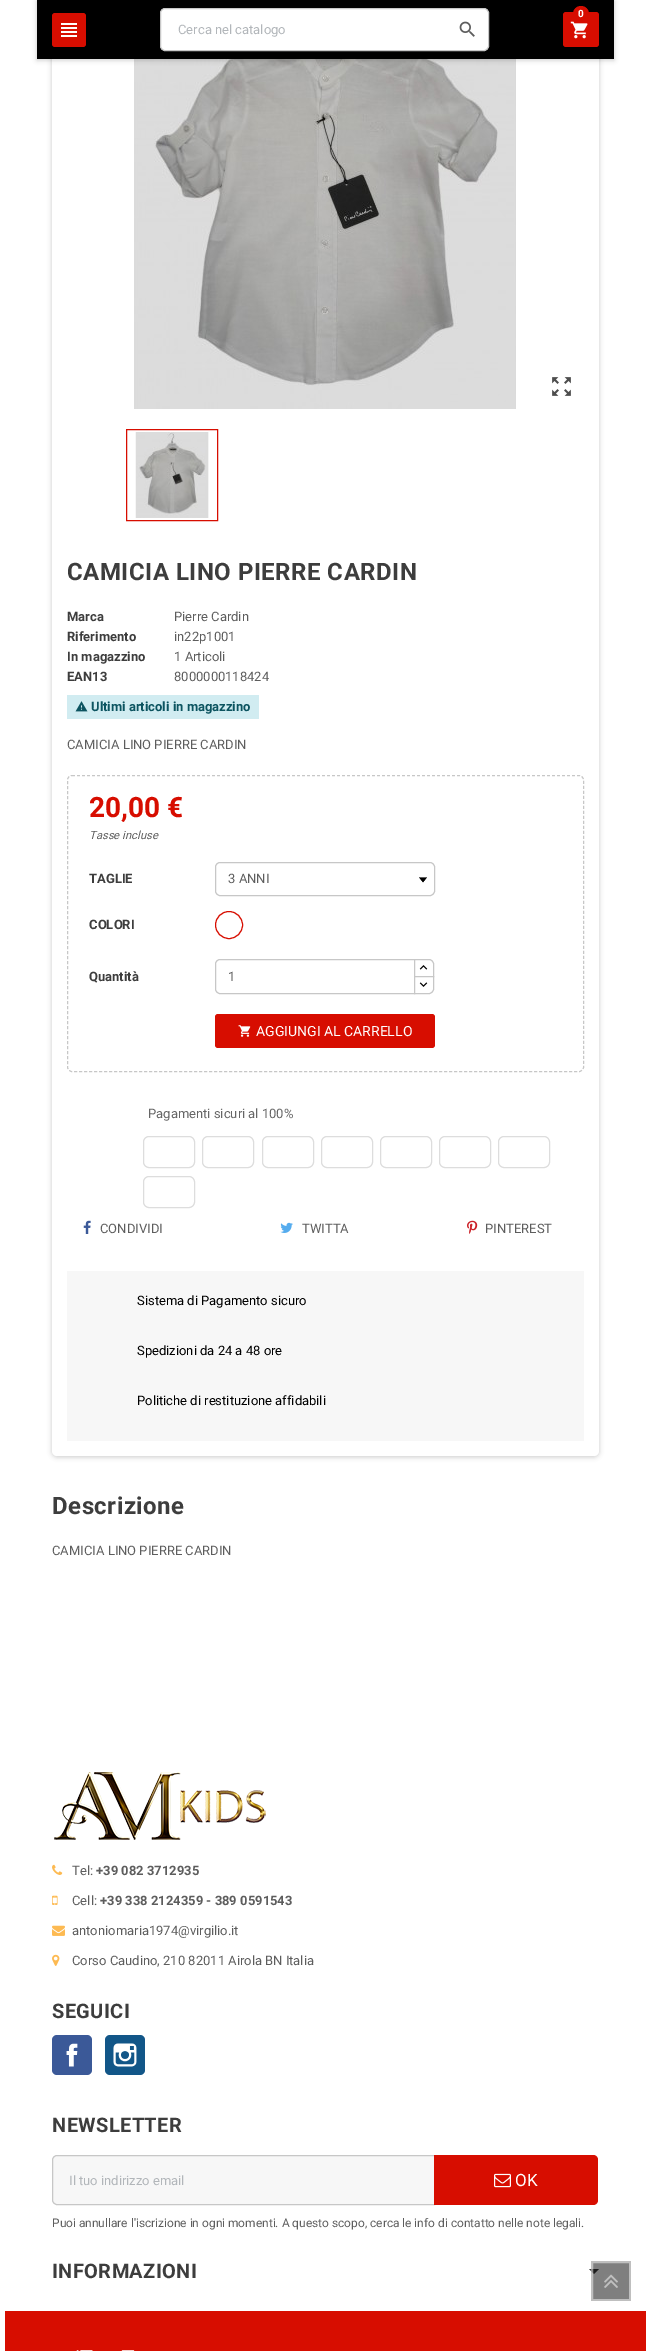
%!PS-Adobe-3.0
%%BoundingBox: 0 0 651 2351
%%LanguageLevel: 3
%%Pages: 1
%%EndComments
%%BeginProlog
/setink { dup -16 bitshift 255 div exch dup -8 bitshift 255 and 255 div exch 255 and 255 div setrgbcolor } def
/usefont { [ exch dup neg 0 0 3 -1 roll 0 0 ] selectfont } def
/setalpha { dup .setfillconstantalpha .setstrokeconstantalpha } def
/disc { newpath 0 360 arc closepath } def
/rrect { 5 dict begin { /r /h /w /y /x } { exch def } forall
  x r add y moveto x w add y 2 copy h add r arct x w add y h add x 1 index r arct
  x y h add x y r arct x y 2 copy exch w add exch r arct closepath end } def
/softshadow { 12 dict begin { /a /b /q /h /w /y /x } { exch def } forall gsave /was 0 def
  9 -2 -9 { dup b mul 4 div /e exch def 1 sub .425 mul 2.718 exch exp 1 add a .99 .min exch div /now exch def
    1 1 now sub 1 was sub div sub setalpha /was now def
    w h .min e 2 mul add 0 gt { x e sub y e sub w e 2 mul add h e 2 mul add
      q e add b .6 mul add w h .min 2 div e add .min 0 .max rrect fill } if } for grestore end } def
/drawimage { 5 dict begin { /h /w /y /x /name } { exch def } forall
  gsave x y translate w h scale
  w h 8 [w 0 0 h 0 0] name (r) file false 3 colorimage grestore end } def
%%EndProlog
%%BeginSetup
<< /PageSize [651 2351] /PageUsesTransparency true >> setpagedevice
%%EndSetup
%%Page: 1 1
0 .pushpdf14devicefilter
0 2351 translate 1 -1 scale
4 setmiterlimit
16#FFFFFF setink
0 0 651 2351 rectfill
16#000000 setink
52 -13 547 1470 5 2.5 0.2 softshadow
16#FFFFFF setink
52 -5 547 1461 5 rrect fill
(img4.raw) 134 59 382 350 drawimage
16#000000 setink
37 1 577 59 0 2.5 0.2 softshadow
37 0 577 59 rectfill
16#D70D00 setink
52 13 34 34 3 rrect fill
(img1.raw) 61 23 16 14 drawimage
16#FFFFFF setink
160.5 8.5 328 42 4.5 rrect gsave fill grestore
16#C7C7C7 setink
stroke
/Roboto-Regular 13 usefont
16#B2B6BA setink
178 34 moveto (Cerca nel catalogo) show
(img2.raw) 459 21 16 16 drawimage
16#D70D00 setink
563 12 36 35 3 rrect fill
(img3.raw) 570 21 18 18 drawimage
581 14 8 disc fill
/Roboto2-Bold 10 usefont
16#FFFFFF setink
578 17 moveto (0) show
(img5.raw) 552 377 19 19 drawimage
16#D70D00 setink
126.5 429.5 91 91 rectstroke
(img6.raw) 135 432 74 86 drawimage
/Roboto-Bold 24 usefont
16#3D3D3D setink
67 580 moveto 0.5 0 (CAMICIA LINO PIERRE CARDIN) ashow
/Roboto2-Bold 13 usefont
67 621 moveto (Marca) show
/Roboto-Regular 13 usefont
16#5D5D5D setink
174 621 moveto (Pierre Cardin) show
/Roboto2-Bold 13 usefont
16#3D3D3D setink
67 641 moveto (Riferimento) show
/Roboto-Regular 13 usefont
16#5D5D5D setink
174 641 moveto (in22p1001) show
/Roboto2-Bold 13 usefont
16#3D3D3D setink
67 661 moveto (In magazzino) show
/Roboto-Regular 13 usefont
16#5D5D5D setink
174 661 moveto (1 Articoli) show
/Roboto2-Bold 13 usefont
16#3D3D3D setink
67 681 moveto (EAN13) show
/Roboto-Regular 13 usefont
16#5D5D5D setink
174 681 moveto (8000000118424) show
16#D1ECF1 setink
67 695 192 24 rectfill
(img7.raw) 75 701 13 11 drawimage
/Roboto2-Bold 13 usefont
16#0C5460 setink
91 711 moveto (Ultimi articoli in magazzino) show
/Roboto-Regular 13 usefont
16#5D5D5D setink
67 749 moveto (CAMICIA LINO PIERRE CARDIN) show
16#C7C7C7 setink
[3 2] 0 setdash
72 775.5 moveto 579 775.5 lineto 581.5 775.5 583.5 777.5 583.5 780 curveto 583.5 1067 lineto 583.5 1069.5 581.5 1071.5 579 1071.5 curveto 72 1071.5 lineto 69.5 1071.5 67.5 1069.5 67.5 1067 curveto 67.5 780 lineto 67.5 777.5 69.5 775.5 72 775.5 curveto closepath stroke
/Roboto2-Bold 28 usefont
16#D70D00 setink
89 817 moveto (20,00 €) show
/Roboto-Italic 11.25 usefont
16#5D5D5D setink
89 839 moveto (Tasse incluse) show
/Roboto2-Bold 13 usefont
16#3D3D3D setink
89 883 moveto (TAGLIE) show
(img8.raw) 419 877 8 6 drawimage
16#C7C7C7 setink
[] 0 setdash
215.5 862.5 219 33 4.5 rrect stroke
/Roboto-Regular 13 usefont
16#5D5D5D setink
228 883 moveto (3 ANNI) show
/Roboto2-Bold 13 usefont
16#3D3D3D setink
89 929 moveto (COLORI) show
16#D70D00 setink
229 925 13.5 disc stroke
16#3D3D3D setink
89 981 moveto (Quantità) show
16#C7C7C7 setink
220 959.5 moveto 414.5 959.5 lineto 414.5 993.5 lineto 220 993.5 lineto 217.5 993.5 215.5 991.5 215.5 989 curveto 215.5 964 lineto 215.5 961.5 217.5 959.5 220 959.5 curveto closepath stroke
/Roboto-Regular 13 usefont
16#5D5D5D setink
228 981 moveto (1) show
16#FFFFFF setink
414.5 959.5 moveto 429 959.5 lineto 431.5 959.5 433.5 961.5 433.5 964 curveto 433.5 976.5 lineto 414.5 976.5 lineto closepath gsave fill grestore
16#C7C7C7 setink
stroke
(img9.raw) 419 965 9 5 drawimage
16#FFFFFF setink
414.5 976.5 moveto 433.5 976.5 lineto 433.5 989 lineto 433.5 991.5 431.5 993.5 429 993.5 curveto 414.5 993.5 lineto closepath gsave fill grestore
16#C7C7C7 setink
stroke
(img10.raw) 419 982 9 5 drawimage
16#D70D00 setink
215 1014 220 34 3 rrect fill
(img11.raw) 238 1025 13 12 drawimage
/Roboto-Regular 14 usefont
16#FFFFFF setink
256 1036 moveto (AGGIUNGI AL CARRELLO) show
/Roboto-Regular 13 usefont
16#666666 setink
148 1118 moveto (Pagamenti sicuri al 100%) show
16#DDDDDD setink
143.5 1136.5 51 31 5.5 rrect stroke
202.5 1136.5 51 31 5.5 rrect stroke
262.5 1136.5 51 31 5.5 rrect stroke
321.5 1136.5 51 31 5.5 rrect stroke
380.5 1136.5 51 31 5.5 rrect stroke
439.5 1136.5 51 31 5.5 rrect stroke
498.5 1136.5 51 31 5.5 rrect stroke
143.5 1176.5 51 31 5.5 rrect stroke
(img12.raw) 83 1220 8 14 drawimage
16#5D5D5D setink
100 1233 moveto (CONDIVIDI) show
(img13.raw) 280 1222 13 11 drawimage
302 1233 moveto (TWITTA) show
(img14.raw) 467 1220 11 14 drawimage
485 1233 moveto (PINTEREST) show
16#F7F7F7 setink
67 1271 517 170 rectfill
16#000000 setink
[
    [(Sistema di Pagamento sicuro) 137 1305]
    [(Spedizioni da 24 a 48 ore) 137 1355]
    [(Politiche di restituzione affidabili) 137 1405]
] { aload pop moveto show } forall
/Roboto-Bold 24 usefont
16#3D3D3D setink
52 1514 moveto 0.5 0 (Descrizione) ashow
/Roboto-Regular 13 usefont
16#5D5D5D setink
52 1555 moveto (CAMICIA LINO PIERRE CARDIN) show
(img15.raw) 54 1772 212 68 drawimage
(img16.raw) 52 1864 11 11 drawimage
72 1875 moveto (Tel:) show
/Roboto2-Bold 13 usefont
96 1875 moveto (+39 082 3712935) show
(img17.raw) 52 1895 6 10 drawimage
/Roboto-Regular 13 usefont
72 1905 moveto (Cell:) show
/Roboto2-Bold 13 usefont
100 1905 moveto (+39 338 2124359 - 389 0591543) show
(img18.raw) 52 1925 13 11 drawimage
/Roboto-Regular 13 usefont
72 1935 moveto (antoniomaria1974@virgilio.it) show
(img19.raw) 52 1954 8 12 drawimage
72 1965 moveto (Corso Caudino, 210 82011 Airola BN Italia) show
/Roboto-Bold 20 usefont
16#3D3D3D setink
52 2018 moveto 0.4 0 (SEGUICI) ashow
16#3B5998 setink
52 2035 40 40 5 rrect fill
(img20.raw) 66 2043 12 24 drawimage
16#125688 setink
105 2035 40 40 5 rrect fill
(img21.raw) 113 2043 24 24 drawimage
16#3D3D3D setink
52 2132 moveto 0.4 0 (NEWSLETTER) ashow
16#F7F7F7 setink
57 2155.5 moveto 434.5 2155.5 lineto 434.5 2204.5 lineto 57 2204.5 lineto 54.5 2204.5 52.5 2202.5 52.5 2200 curveto 52.5 2160 lineto 52.5 2157.5 54.5 2155.5 57 2155.5 curveto closepath gsave fill grestore
16#C7C7C7 setink
stroke
/Roboto-Regular 13 usefont
16#B2B6BA setink
69 2185 moveto (Il tuo indirizzo email) show
16#D70D00 setink
434 2155 moveto 593 2155 lineto 596 2155 598 2157 598 2160 curveto 598 2200 lineto 598 2203 596 2205 593 2205 curveto 434 2205 lineto closepath fill
(img22.raw) 494 2173 17 15 drawimage
/Roboto-Regular 17 usefont
16#FFFFFF setink
515 2186 moveto (OK) show
/Roboto-Regular 11.95 usefont
16#5D5D5D setink
52 2227 moveto (Puoi annullare l'iscrizione in ogni momenti. A questo scopo, cerca le info di contatto nelle note legali.) show
/Roboto-Bold 20 usefont
16#3D3D3D setink
52 2278 moveto 0.4 0 (INFORMAZIONI) ashow
589 2269 moveto 599 2269 lineto 594 2274 lineto closepath fill
16#D70D00 setink
5 2311 641 40 rectfill
0.5 setalpha
16#000000 setink
591 2261 40 40 rectfill
16#FFFFFF setink
2 setlinewidth
592 2262 38 38 rectstroke
1 setalpha
(img23.raw) 604 2274 14 14 drawimage
(img24.raw) 76 2350 59 1 drawimage
.poppdf14devicefilter showpage
%%EOF
